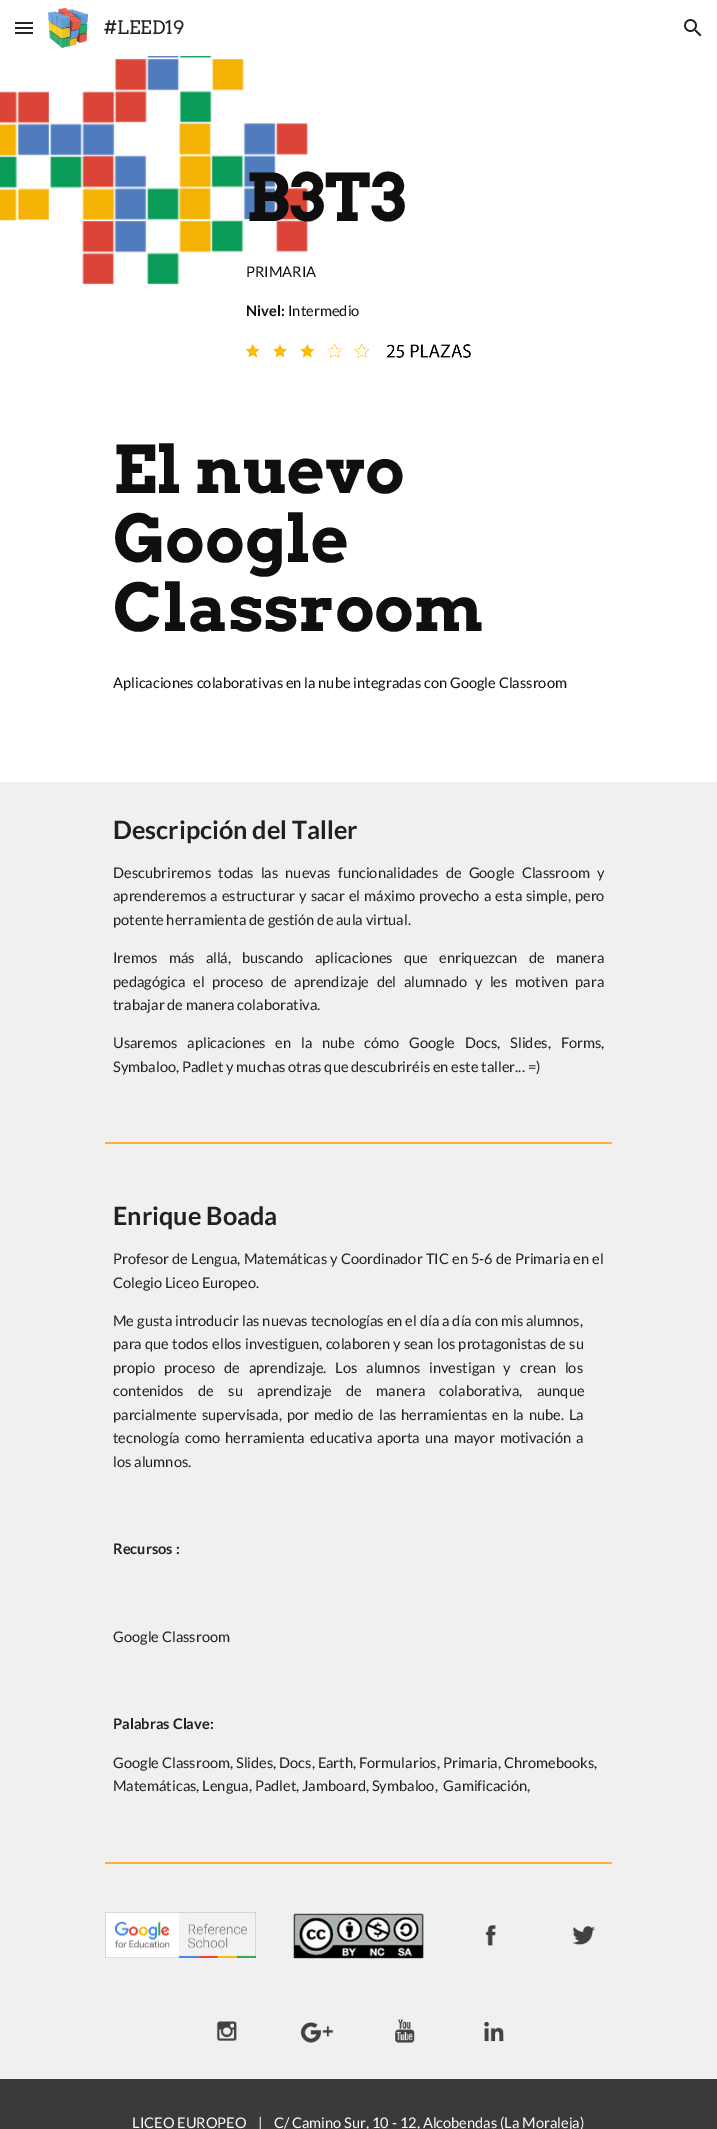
%!PS-Adobe-3.0
%%BoundingBox: 0 0 717 2129
%%LanguageLevel: 3
%%Pages: 1
%%EndComments
%%BeginProlog
/setink { dup -16 bitshift 255 div exch dup -8 bitshift 255 and 255 div exch 255 and 255 div setrgbcolor } def
/usefont { [ exch dup neg 0 0 3 -1 roll 0 0 ] selectfont } def
/drawimage { 5 dict begin { /h /w /y /x /name } { exch def } forall
  gsave x y translate w h scale
  w h 8 [w 0 0 h 0 0] name (r) file false 3 colorimage grestore end } def
%%EndProlog
%%BeginSetup
<< /PageSize [717 2129] >> setpagedevice
%%EndSetup
%%Page: 1 1
0 2129 translate 1 -1 scale
4 setmiterlimit
16#FFFFFF setink
0 0 717 2129 rectfill
[
    [15 22 18 2 16#212121]
    [15 27 18 2 16#212121]
    [15 32 18 2 16#212121]
] { aload pop setink rectfill } forall
(img1.raw) 48 7 41 42 drawimage
/Arvo-Regular 18.5 usefont
104 34 moveto (#LEED19) show
(img2.raw) 684 19 18 18 drawimage
(img3.raw) 0 56 308 229 drawimage
/Arvo-Bold 65.5 usefont
16#0F0F0F setink
246 221 moveto (B3T3) show
/Lato-Regular 14.65 usefont
246 277 moveto (PRIMARIA) show
/Lato-Bold 14.65 usefont
246 316 moveto (Nivel:) show
/Lato-Regular 14.65 usefont
288 316 moveto (Intermedio) show
(img4.raw) 246 343 225 15 drawimage
/Arvo-Bold 65.5 usefont
[
    [(El nuevo) 113 493]
    [(Google) 113 562]
    [(Classroom) 113 631]
] { aload pop moveto show } forall
/Lato-Regular 14.65 usefont
113 688 moveto (Aplicaciones colaborativas en la nube integradas con Google Classroom) show
16#F0F0F0 setink
0 782 717 1297 rectfill
/Lato-Bold 25.25 usefont
16#212121 setink
113 839 moveto (Descripción del Taller) show
/Lato-Regular 14.65 usefont
113 878 moveto 4.25 0 32 (Descubriremos todas las nuevas funcionalidades de Google Classroom y) widthshow
113 901 moveto 1.25 0 32 (aprenderemos a estructurar y sacar el máximo provecho a esta simple, pero) widthshow
113 925 moveto (potente herramienta de gestión de aula virtual.) show
113 963 moveto 8.25 0 32 (Iremos más allá, buscando aplicaciones que enriquezcan de manera) widthshow
113 987 moveto 4.75 0 32 (pedagógica el proceso de aprendizaje del alumnado y les motiven para) widthshow
113 1010 moveto (trabajar de manera colaborativa.) show
113 1048 moveto 7 0 32 (Usaremos aplicaciones en la nube cómo Google Docs, Slides, Forms,) widthshow
113 1072 moveto (Symbaloo, Padlet y muchas otras que descubriréis en este taller...) show
528 1072 moveto (=\)) show
16#F9B233 setink
105 1142 507 2 rectfill
/Lato-Bold 25.25 usefont
16#212121 setink
113 1225 moveto (Enrique Boada) show
/Lato-Regular 14.65 usefont
113 1264 moveto 0.25 0 32 (Profesor de Lengua, Matemáticas y Coordinador TIC en 5-6 de Primaria en el) widthshow
113 1288 moveto (Colegio Liceo Europeo.) show
113 1326 moveto 0.1 0 32 (Me gusta introducir las nuevas tecnologías en el día a día con mis alumnos,) widthshow
113 1349 moveto 0.5 0 32 (para que todos ellos investiguen, colaboren y sean los protagonistas de su) widthshow
113 1373 moveto 6 0 32 (propio proceso de aprendizaje. Los alumnos investigan y crean los) widthshow
113 1396 moveto 11.5 0 32 (contenidos de su aprendizaje de manera colaborativa, aunque) widthshow
113 1420 moveto 2 0 32 (parcialmente supervisada, por medio de las herramientas en la nube. La) widthshow
113 1443 moveto 2.25 0 32 (tecnología como herramienta educativa aporta una mayor motivación a) widthshow
113 1467 moveto (los alumnos.) show
/Lato-Bold 14.65 usefont
113 1554 moveto (Recursos :) show
/Lato-Regular 14.65 usefont
113 1642 moveto (Google Classroom) show
/Lato-Bold 14.65 usefont
113 1729 moveto (Palabras Clave:) show
/Lato-Regular 14.65 usefont
113 1768 moveto (Google Classroom, Slides, Docs, Earth, Formularios, Primaria, Chromebooks,) show
113 1791 moveto (Matemáticas, Lengua, Padlet, Jamboard, Symbaloo,  Gamificación,) show
16#F9B233 setink
105 1862 507 2 rectfill
(img5.raw) 105 1912 151 46 drawimage
(img6.raw) 290 1912 136 48 drawimage
(img7.raw) 485 1925 11 21 drawimage
(img8.raw) 572 1926 23 19 drawimage
(img9.raw) 216 2021 21 20 drawimage
(img10.raw) 300 2022 34 21 drawimage
(img11.raw) 395 2019 20 24 drawimage
(img12.raw) 484 2021 20 21 drawimage
16#3A3A3A setink
0 2079 717 50 rectfill
16#FFFFFF setink
132 2128 moveto (LICEO EUROPEO    |    C/ Camino Sur, 10 - 12, Alcobendas \(La Moraleja\)) show
showpage
%%EOF
